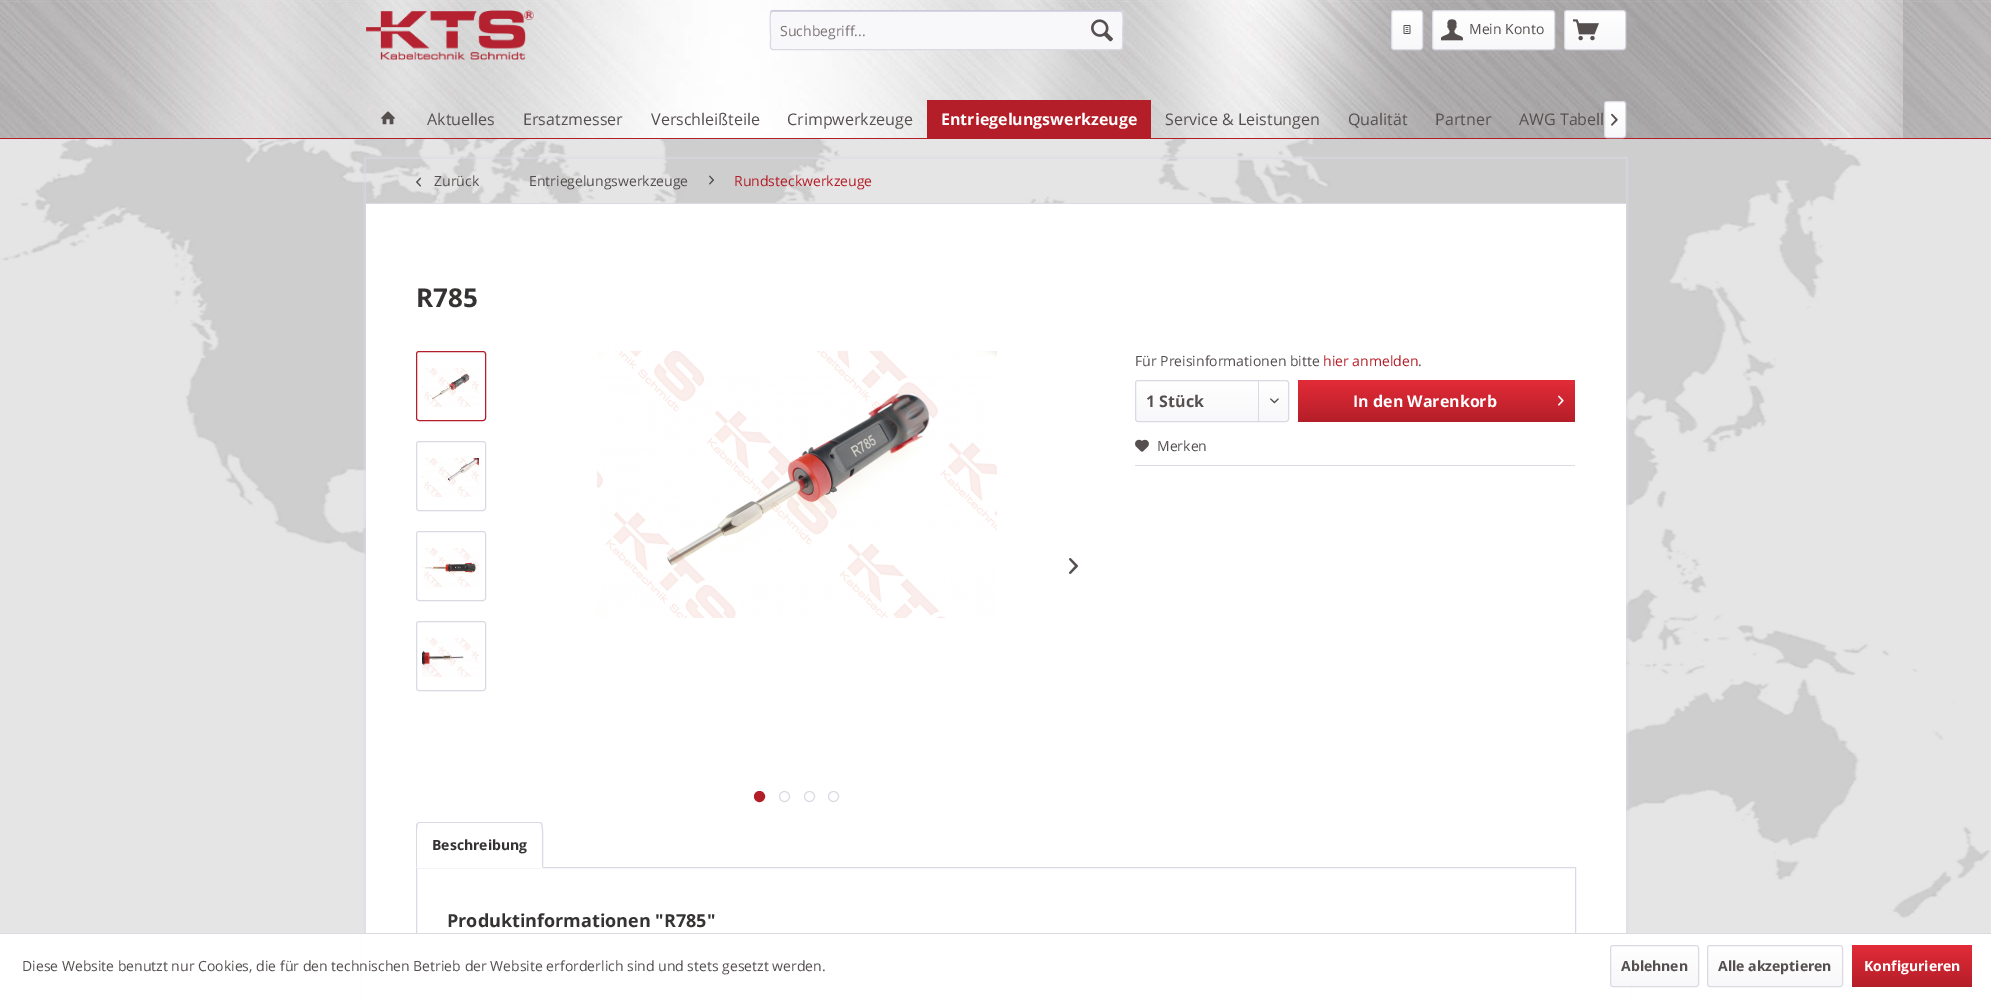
%!PS-Adobe-3.0
%%BoundingBox: 0 0 1991 997
%%LanguageLevel: 3
%%Pages: 1
%%EndComments
%%BeginProlog
/setink { dup -16 bitshift 255 div exch dup -8 bitshift 255 and 255 div exch 255 and 255 div setrgbcolor } def
/usefont { [ exch dup neg 0 0 3 -1 roll 0 0 ] selectfont } def
/setalpha { dup .setfillconstantalpha .setstrokeconstantalpha } def
/disc { newpath 0 360 arc closepath } def
/rrect { 5 dict begin { /r /h /w /y /x } { exch def } forall
  x r add y moveto x w add y 2 copy h add r arct x w add y h add x 1 index r arct
  x y h add x y r arct x y 2 copy exch w add exch r arct closepath end } def
/softshadow { 12 dict begin { /a /b /q /h /w /y /x } { exch def } forall gsave /was 0 def
  9 -2 -9 { dup b mul 4 div /e exch def 1 sub .425 mul 2.718 exch exp 1 add a .99 .min exch div /now exch def
    1 1 now sub 1 was sub div sub setalpha /was now def
    w h .min e 2 mul add 0 gt { x e sub y e sub w e 2 mul add h e 2 mul add
      q e add b .6 mul add w h .min 2 div e add .min 0 .max rrect fill } if } for grestore end } def
/drawimage { 5 dict begin { /h /w /y /x /name } { exch def } forall
  gsave x y translate w h scale
  w h 8 [w 0 0 h 0 0] name (r) file false 3 colorimage grestore end } def
%%EndProlog
%%BeginSetup
<< /PageSize [1991 997] /PageUsesTransparency true >> setpagedevice
%%EndSetup
%%Page: 1 1
0 .pushpdf14devicefilter
0 997 translate 1 -1 scale
4 setmiterlimit
16#FFFFFF setink
0 0 1991 997 rectfill
(img1.raw) 0 0 1991 138 drawimage
(img2.raw) 366 10 168 50 drawimage
16#F8F8FA setink
770 10 353 40 3 rrect fill
16#DADAE5 setink
773 12 moveto 1120 12 lineto 1121 12 1122 13 1122 14 curveto 1122 13 1122 11 1120 11 curveto 773 11 lineto 771 11 771 13 771 14 curveto 771 13 772 12 773 12 curveto closepath fill
16#CBCBDB setink
771 11 moveto 773 10.5 lineto 1120 10.5 lineto 1122 11 lineto stroke
16#DADAE5 setink
1122 11 moveto 1123.5 13 1122.5 32 1122.5 35.5 curveto 1122.5 41.5 lineto 1122.5 43 1124 49.5 1120 49.5 curveto 773 49.5 lineto 769 49.5 770.5 43 770.5 41.5 curveto 770.5 35.5 lineto 770.5 32 769.5 13 771 11 curveto stroke
/OpenSans-Regular 14 usefont
16#7D7574 setink
780 36 moveto (Suchbegriff...) show
(img3.raw) 1091 19 22 23 drawimage
gsave 1392 11 30 38 2 rrect clip newpath
<< /ShadingType 2 /ColorSpace /DeviceRGB /Coords [1407 11 1407 49] /Extend [true true] /Function << /FunctionType 2 /Domain [0 1] /C0 [1 1 1] /C1 [0.973 0.973 0.98] /N 1 >> >> shfill grestore
16#DADAE5 setink
1391.5 10.5 31 39 2.5 rrect stroke
(img4.raw) 1403 25 8 9 drawimage
gsave 1433 11 121 38 2 rrect clip newpath
<< /ShadingType 2 /ColorSpace /DeviceRGB /Coords [1494 11 1494 49] /Extend [true true] /Function << /FunctionType 2 /Domain [0 1] /C0 [1 1 1] /C1 [0.973 0.973 0.98] /N 1 >> >> shfill grestore
1432.5 10.5 122 39 2.5 rrect stroke
(img5.raw) 1441 19 22 22 drawimage
16#55504F setink
1469 34 moveto (Mein Konto) show
gsave 1565 11 60 38 2 rrect clip newpath
<< /ShadingType 2 /ColorSpace /DeviceRGB /Coords [1595 11 1595 49] /Extend [true true] /Function << /FunctionType 2 /Domain [0 1] /C0 [1 1 1] /C1 [0.973 0.973 0.98] /N 1 >> >> shfill grestore
16#DADAE5 setink
1564.5 10.5 61 39 2.5 rrect stroke
(img6.raw) 1573 19 26 22 drawimage
16#B41E28 setink
0 138 1991 1 rectfill
(img7.raw) 380 111 16 14 drawimage
/OpenSans-Regular 16 usefont
16#55504F setink
[
    [(Aktuelles) 427 125]
    [(Ersatzmesser) 523 125]
    [(Verschleißteile) 651 125]
    [(Crimpwerkzeuge) 787 125]
] { aload pop moveto show } forall
16#B41E28 setink
927 100 224 38 rectfill
/OpenSans-Bold 16 usefont
16#FFFFFF setink
941 125 moveto (Entriegelungswerkzeuge) show
/OpenSans-Regular 16 usefont
16#55504F setink
[
    [(Service & Leistungen) 1165 125]
    [(Qualität) 1348 125]
    [(Partner) 1435 125]
    [(AWG Tabell) 1519 125]
] { aload pop moveto show } forall
gsave 1605 102 20 35 2 rrect clip newpath
<< /ShadingType 2 /ColorSpace /DeviceRGB /Coords [1615 102 1615 137] /Extend [true true] /Function << /FunctionType 2 /Domain [0 1] /C0 [1 1 1] /C1 [0.973 0.973 0.98] /N 1 >> >> shfill grestore
16#DADAE5 setink
1604.5 101.5 21 36 2.5 rrect stroke
(img8.raw) 1611 113 7 13 drawimage
(img9.raw) 0 139 1991 794 drawimage
gsave
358 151 moveto 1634 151 lineto 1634 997 lineto 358 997 lineto closepath 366 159 moveto 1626 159 lineto 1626 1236 lineto 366 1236 lineto closepath eoclip newpath
365 158 1262 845 0 2 1 softshadow
grestore
366 203 1260 1 rectfill
(img10.raw) 416 177 5 10 drawimage
/OpenSans-Regular 14 usefont
16#55504F setink
434 186 moveto (Zurück) show
529 186 moveto (Entriegelungswerkzeuge) show
(img11.raw) 709 175 5 10 drawimage
16#B41E28 setink
734 186 moveto (Rundsteckwerkzeuge) show
16#FFFFFF setink
366 204 1260 729 rectfill
/OpenSans-Bold 26 usefont
16#353232 setink
416 307 moveto (R785) show
16#B41E28 setink
416.5 351.5 69 69 2.5 rrect stroke
(img12.raw) 422 368 57 39 drawimage
16#DADAE5 setink
416.5 441.5 69 69 2.5 rrect stroke
(img13.raw) 422 458 57 39 drawimage
416.5 531.5 69 69 2.5 rrect stroke
(img14.raw) 422 548 57 39 drawimage
416.5 621.5 69 69 2.5 rrect stroke
(img15.raw) 422 638 57 39 drawimage
(img16.raw) 597 351 400 267 drawimage
(img17.raw) 1069 558 9 16 drawimage
16#B41E28 setink
759.5 796.5 5 disc gsave fill grestore
stroke
16#DADAE5 setink
784.5 796.5 5 disc stroke
809.5 796.5 5 disc stroke
833.5 796.5 5 disc stroke
/OpenSans-Regular 14 usefont
16#55504F setink
1135 366 moveto (Für Preisinformationen bitte) show
16#B41E28 setink
1323 366 moveto (hier anmelden) show
16#55504F setink
1418 366 moveto (.) show
gsave 1136 381 152 40 2 rrect clip newpath
<< /ShadingType 2 /ColorSpace /DeviceRGB /Coords [1212 381 1212 421] /Extend [true true] /Function << /FunctionType 2 /Domain [0 1] /C0 [1 1 1] /C1 [0.973 0.973 0.98] /N 1 >> >> shfill grestore
16#DADAE5 setink
1135.5 380.5 153 41 2.5 rrect stroke
/OpenSans-Bold 16 usefont
16#55504F setink
1146 407 moveto (1 Stück) show
16#DADAE5 setink
1258 381 1 40 rectfill
(img18.raw) 1270 398 9 6 drawimage
gsave 1298 380 277 42 3 rrect clip newpath
<< /ShadingType 2 /ColorSpace /DeviceRGB /Coords [1437 380 1437 422] /Extend [true true] /Function << /FunctionType 2 /Domain [0 1] /C0 [0.89 0.173 0.224] /C1 [0.706 0.118 0.157] /N 1 >> >> shfill grestore
16#FFFFFF setink
1353 407 moveto (In den Warenkorb) show
(img19.raw) 1558 395 6 11 drawimage
16#DADAE5 setink
1135 465 440 1 rectfill
(img20.raw) 1135 439 14 13 drawimage
/OpenSans-Regular 14 usefont
16#55504F setink
1157 451 moveto (Merken) show
16#DADAE5 setink
416.5 867.5 1159 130 rectstroke
16#FFFFFF setink
419 822 moveto 540 822 lineto 541.5 822 543 823.5 543 825 curveto 543 868 lineto 416 868 lineto 416 825 lineto 416 823.5 417.5 822 419 822 curveto closepath fill
16#DADAE5 setink
419 822 moveto 417 823 lineto 418 824 lineto 419 823 lineto 540 823 lineto 541 824 lineto 542 823 lineto 540 822 lineto closepath fill
543 868 moveto 543 863 544 825 542 823 curveto 541 824 lineto 543 825 542 862 542 867 curveto closepath fill
16#FFFFFF setink
543 868 moveto 542 867 lineto 417 867 lineto 416 868 lineto closepath fill
16#DADAE5 setink
416 868 moveto 417 867 lineto 417 862 416 825 418 824 curveto 417 823 lineto 416 825 lineto closepath fill
/OpenSans-Bold 14 usefont
16#353232 setink
432 850 moveto (Beschreibung) show
/OpenSans-Bold 18 usefont
447 927 moveto (Produktinformationen "R785") show
16#FFFFFF setink
362 934 1268 63 rectfill
16#DADAE5 setink
0 933 1991 1 rectfill
/OpenSans-Regular 14 usefont
16#55504F setink
22 971 moveto (Diese Website benutzt nur Cookies, die für den technischen Betrieb der Website erforderlich sind und stets gesetzt werden.) show
gsave 1611 946 87 40 2 rrect clip newpath
<< /ShadingType 2 /ColorSpace /DeviceRGB /Coords [1655 946 1655 986] /Extend [true true] /Function << /FunctionType 2 /Domain [0 1] /C0 [1 1 1] /C1 [0.973 0.973 0.98] /N 1 >> >> shfill grestore
16#DADAE5 setink
1610.5 945.5 88 41 2.5 rrect stroke
/OpenSans-Bold 14 usefont
16#55504F setink
1621 971 moveto (Ablehnen) show
gsave 1708 946 134 40 2 rrect clip newpath
<< /ShadingType 2 /ColorSpace /DeviceRGB /Coords [1775 946 1775 986] /Extend [true true] /Function << /FunctionType 2 /Domain [0 1] /C0 [1 1 1] /C1 [0.973 0.973 0.98] /N 1 >> >> shfill grestore
16#DADAE5 setink
1707.5 945.5 135 41 2.5 rrect stroke
16#55504F setink
1718 971 moveto (Alle akzeptieren) show
gsave 1852 945 120 42 3 rrect clip newpath
<< /ShadingType 2 /ColorSpace /DeviceRGB /Coords [1912 945 1912 987] /Extend [true true] /Function << /FunctionType 2 /Domain [0 1] /C0 [0.89 0.173 0.224] /C1 [0.706 0.118 0.157] /N 1 >> >> shfill grestore
16#FFFFFF setink
1864 971 moveto (Konfigurieren) show
.poppdf14devicefilter showpage
%%EOF
